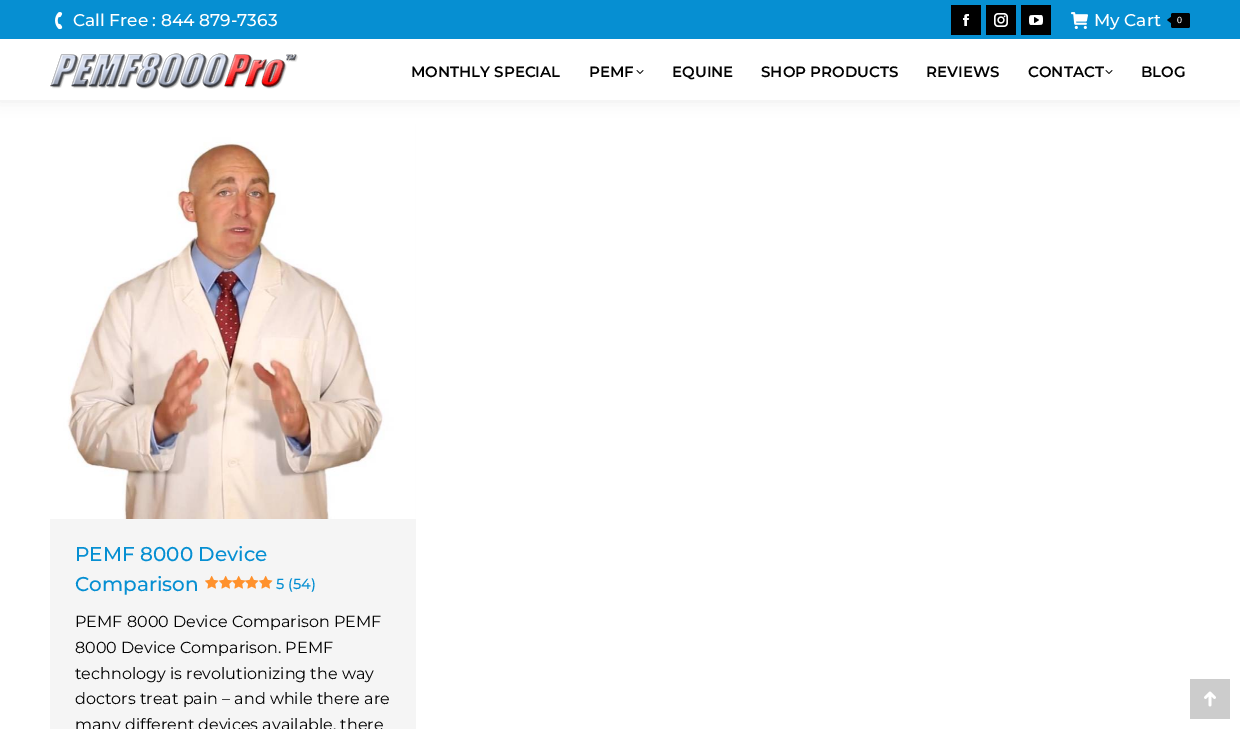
%!PS-Adobe-3.0
%%BoundingBox: 0 0 1240 729
%%LanguageLevel: 3
%%Pages: 1
%%EndComments
%%BeginProlog
/setink { dup -16 bitshift 255 div exch dup -8 bitshift 255 and 255 div exch 255 and 255 div setrgbcolor } def
/usefont { [ exch dup neg 0 0 3 -1 roll 0 0 ] selectfont } def
/setalpha { dup .setfillconstantalpha .setstrokeconstantalpha } def
/rrect { 5 dict begin { /r /h /w /y /x } { exch def } forall
  x r add y moveto x w add y 2 copy h add r arct x w add y h add x 1 index r arct
  x y h add x y r arct x y 2 copy exch w add exch r arct closepath end } def
/softshadow { 12 dict begin { /a /b /q /h /w /y /x } { exch def } forall gsave /was 0 def
  9 -2 -9 { dup b mul 4 div /e exch def 1 sub .425 mul 2.718 exch exp 1 add a .99 .min exch div /now exch def
    1 1 now sub 1 was sub div sub setalpha /was now def
    w h .min e 2 mul add 0 gt { x e sub y e sub w e 2 mul add h e 2 mul add
      q e add b .6 mul add w h .min 2 div e add .min 0 .max rrect fill } if } for grestore end } def
/drawimage { 5 dict begin { /h /w /y /x /name } { exch def } forall
  gsave x y translate w h scale
  w h 8 [w 0 0 h 0 0] name (r) file false 3 colorimage grestore end } def
%%EndProlog
%%BeginSetup
<< /PageSize [1240 729] /PageUsesTransparency true >> setpagedevice
%%EndSetup
%%Page: 1 1
0 .pushpdf14devicefilter
0 729 translate 1 -1 scale
4 setmiterlimit
16#FFFFFF setink
0 0 1240 729 rectfill
16#F5F5F5 setink
50 124 366 605 rectfill
(img8.raw) 50 124 366 395 drawimage
16#000000 setink
-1 -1 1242 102 0 7.5 0.07 softshadow
16#FFFFFF setink
0 39 1240 61 rectfill
16#068FD2 setink
0 0 1240 39 rectfill
(img1.raw) 55 12 8 18 drawimage
/Montserrat-Medium 17 usefont
16#FFFFFF setink
73 26 moveto (Call Free : 844 879-7363) show
16#000000 setink
951 5 30 30 rectfill
(img2.raw) 963 14 6 12 drawimage
986 5 30 30 rectfill
(img3.raw) 994 13 14 14 drawimage
1021 5 30 30 rectfill
(img4.raw) 1029 15 14 10 drawimage
(img5.raw) 1071 12 17 17 drawimage
16#FFFFFF setink
1094 26 moveto (My Cart) show
16#000000 setink
1171 13 19 15 2 rrect fill
1171 17 moveto 1171 23 lineto 1167 20 lineto closepath fill
/LiberationSans-Regular 9 usefont
16#FFFFFF setink
1177 23 moveto (0) show
(img6.raw) 50 53 248 36 drawimage
/Montserrat-SemiBold 15 usefont
16#020202 setink
411 77 moveto (MONTHLY SPECIAL) show
589 77 moveto (PEMF) show
(img7.raw) 636 70 8 4 drawimage
[
    [(EQUINE) 672 77]
    [(SHOP PRODUCTS) 761 77]
    [(REVIEWS) 926 77]
    [(CONTACT) 1028 77]
] { aload pop moveto show } forall
(img7.raw) 1105 70 8 4 drawimage
1141 77 moveto (BLOG) show
/Montserrat-Medium 20 usefont
16#068FD2 setink
75 561 moveto (PEMF 8000 Device) show
75 591 moveto (Comparison) show
(img9.raw) 205 575 14 14 drawimage
(img9.raw) 219 575 14 14 drawimage
(img10.raw) 232 575 14 14 drawimage
(img10.raw) 245 575 14 14 drawimage
(img9.raw) 259 575 14 14 drawimage
/Montserrat-Medium 14.5 usefont
276 589 moveto (5 \(54\)) show
/Montserrat-Regular 16 usefont
16#020202 setink
[
    [(PEMF 8000 Device Comparison PEMF) 75 627]
    [(8000 Device Comparison. PEMF) 75 653]
    [(technology is revolutionizing the way) 75 679]
    [(doctors treat pain – and while there are) 75 704]
    [(many different devices available, there) 75 730]
] { aload pop moveto show } forall
16#CCCCCC setink
1190 679 40 40 rectfill
(img11.raw) 1204 691 12 16 drawimage
.poppdf14devicefilter showpage
%%EOF
